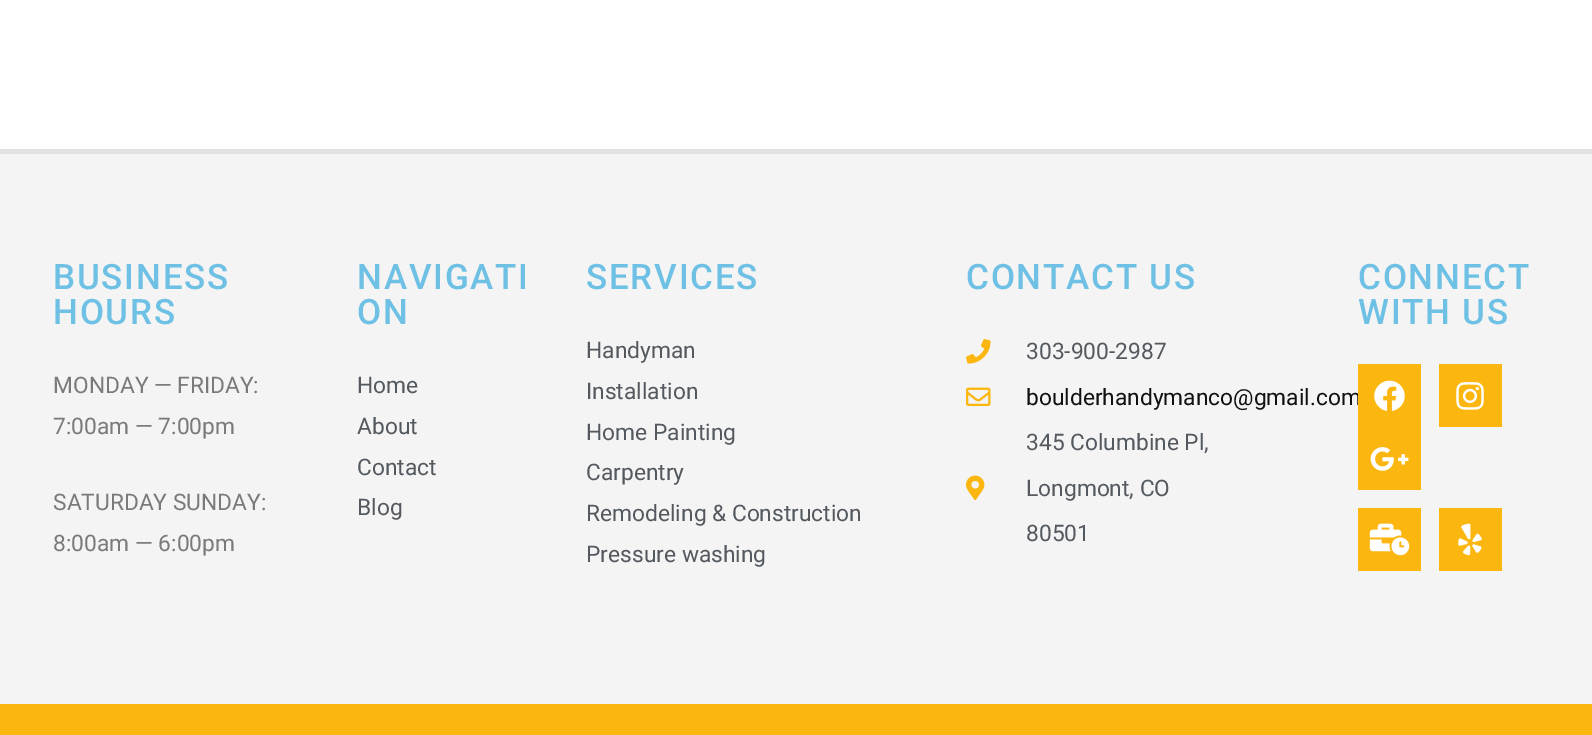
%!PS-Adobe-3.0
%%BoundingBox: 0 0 1592 735
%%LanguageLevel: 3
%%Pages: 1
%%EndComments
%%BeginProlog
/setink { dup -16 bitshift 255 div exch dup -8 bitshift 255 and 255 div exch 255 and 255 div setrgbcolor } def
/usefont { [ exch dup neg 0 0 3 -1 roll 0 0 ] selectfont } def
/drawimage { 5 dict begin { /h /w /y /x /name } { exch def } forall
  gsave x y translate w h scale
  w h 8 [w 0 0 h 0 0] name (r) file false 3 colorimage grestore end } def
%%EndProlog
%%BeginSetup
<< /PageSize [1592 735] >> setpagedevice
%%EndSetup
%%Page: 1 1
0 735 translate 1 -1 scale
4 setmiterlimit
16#FFFFFF setink
0 0 1592 735 rectfill
16#F4F4F4 setink
0 154 1592 550 rectfill
16#E2E2E2 setink
0 149 1592 5 rectfill
/Roboto-Medium 35 usefont
16#6EC1E4 setink
53 289 moveto 1.75 0 (BUSINESS) ashow
53 324 moveto 1.75 0 (HOURS) ashow
/Roboto-Regular 22.75 usefont
16#7A7A7A setink
[
    [(MONDAY — FRIDAY:) 53 393]
    [(7:00am — 7:00pm) 53 434]
    [(SATURDAY SUNDAY:) 53 510]
    [(8:00am — 6:00pm) 53 551]
] { aload pop moveto show } forall
/Roboto-Medium 35 usefont
16#6EC1E4 setink
357 289 moveto 1.75 0 (NAVIGATI) ashow
357 324 moveto 1.75 0 (ON) ashow
/Roboto-Regular 22.75 usefont
16#54595F setink
[
    [(Home) 357 393]
    [(About) 357 434]
    [(Contact) 357 475]
    [(Blog) 357 515]
] { aload pop moveto show } forall
/Roboto-Medium 35 usefont
16#6EC1E4 setink
586 289 moveto 1.75 0 (SERVICES) ashow
/Roboto-Regular 22.75 usefont
16#54595F setink
[
    [(Handyman) 586 358]
    [(Installation) 586 399]
    [(Home Painting) 586 440]
    [(Carpentry) 586 480]
    [(Remodeling & Construction) 586 521]
    [(Pressure washing) 586 562]
] { aload pop moveto show } forall
/Roboto-Medium 35 usefont
16#6EC1E4 setink
966 289 moveto 1.75 0 (CONTACT US) ashow
(img1.raw) 966 339 25 25 drawimage
/Roboto-Regular 22.75 usefont
16#54595F setink
1026 359 moveto (303-900-2987) show
(img2.raw) 966 387 25 19 drawimage
16#111111 setink
1026 405 moveto (boulderhandymanco@gmail.com) show
(img3.raw) 966 475 19 25 drawimage
16#54595F setink
[
    [(345 Columbine Pl,) 1026 450]
    [(Longmont, CO) 1026 496]
    [(80501) 1026 541]
] { aload pop moveto show } forall
/Roboto-Medium 35 usefont
16#6EC1E4 setink
1358 289 moveto 1.75 0 (CONNECT) ashow
1358 324 moveto 1.75 0 (WITH US) ashow
16#FBB610 setink
1358 364 63 126 rectfill
(img4.raw) 1374 380 31 31 drawimage
1439 364 63 63 rectfill
(img5.raw) 1456 382 28 28 drawimage
(img6.raw) 1370 447 39 24 drawimage
1358 508 63 63 rectfill
(img7.raw) 1369 523 41 33 drawimage
1439 508 63 63 rectfill
(img8.raw) 1458 523 24 33 drawimage
0 704 1592 31 rectfill
showpage
%%EOF
